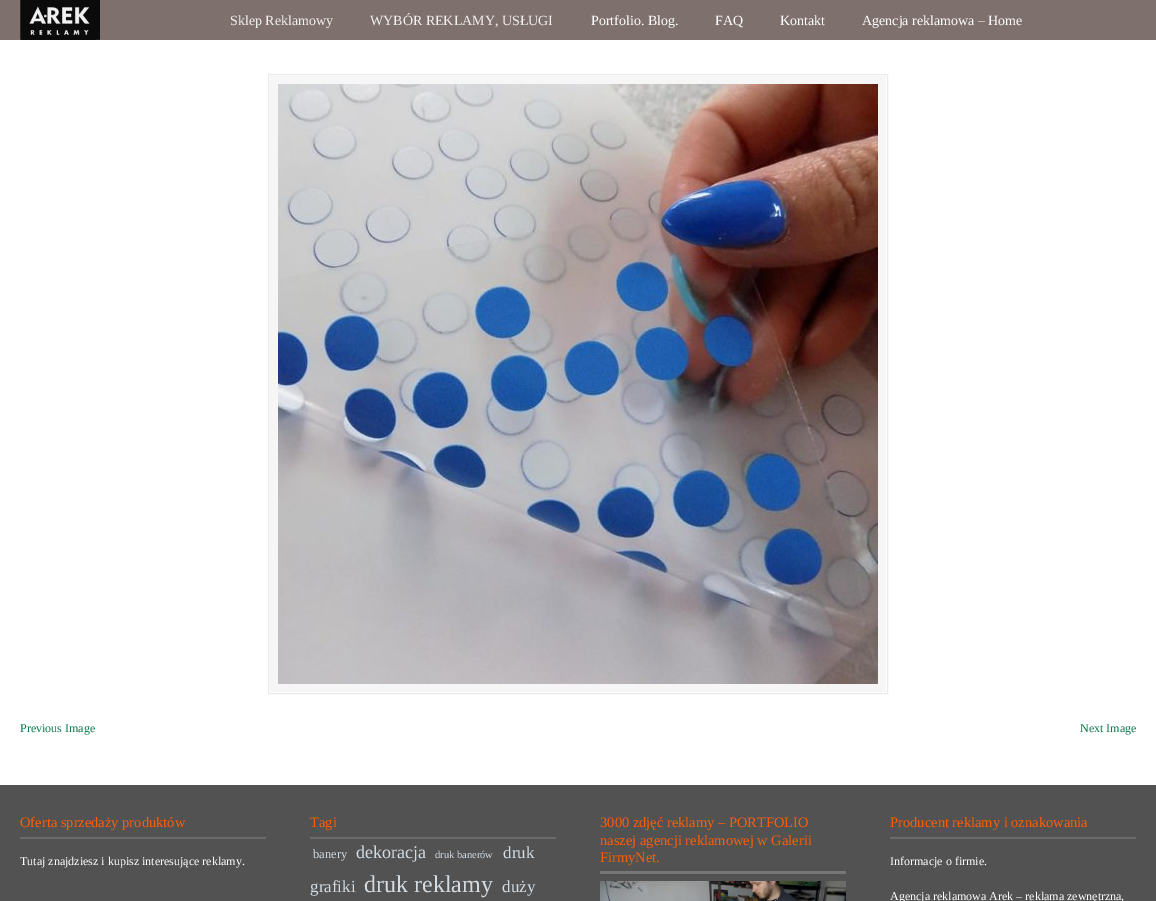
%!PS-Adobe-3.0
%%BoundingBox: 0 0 1156 901
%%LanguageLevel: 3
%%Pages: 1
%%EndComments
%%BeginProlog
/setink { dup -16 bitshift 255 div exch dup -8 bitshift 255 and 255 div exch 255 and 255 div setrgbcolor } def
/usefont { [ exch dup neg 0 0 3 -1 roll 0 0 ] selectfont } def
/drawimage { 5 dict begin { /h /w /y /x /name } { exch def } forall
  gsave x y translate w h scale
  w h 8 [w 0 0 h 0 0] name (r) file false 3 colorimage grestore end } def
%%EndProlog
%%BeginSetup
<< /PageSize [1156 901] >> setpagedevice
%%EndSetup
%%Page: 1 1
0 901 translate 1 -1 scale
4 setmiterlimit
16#FFFFFF setink
0 0 1156 901 rectfill
16#7E706D setink
0 0 1156 40 rectfill
(img1.raw) 20 0 80 40 drawimage
/LiberationSerif-Regular 14 usefont
16#F2F1F0 setink
230 25 moveto (Sklep Reklamowy) show
370 25 moveto (WYBÓR REKLAMY, USŁUGI) show
16#FFFFFF setink
[
    [(Portfolio. Blog.) 591 25]
    [(FAQ) 715 25]
    [(Kontakt) 780 25]
    [(Agencja reklamowa – Home) 862 25]
] { aload pop moveto show } forall
16#F6F6F6 setink
270 76 616 616 rectfill
16#EAEAEA setink
268.5 74.5 619 619 rectstroke
(img2.raw) 278 84 600 600 drawimage
/LiberationSerif-Regular 12 usefont
16#0C784B setink
20 732 moveto (Previous Image) show
1080 732 moveto (Next Image) show
16#525252 setink
0 785 1156 116 rectfill
(img3.raw) 20 837 246 2 drawimage
/LiberationSerif-Regular 14.5 usefont
16#FE5E08 setink
20 827 moveto (Oferta sprzedaży produktów) show
/LiberationSerif-Regular 12 usefont
16#FFFFFF setink
20 865 moveto (Tutaj znajdziesz i kupisz interesujące reklamy.) show
(img3.raw) 310 837 246 2 drawimage
/LiberationSerif-Regular 14.5 usefont
16#FE5E08 setink
310 827 moveto (Tagi) show
/LiberationSerif-Regular 12.5 usefont
16#D3DCE3 setink
313 858 moveto (banery) show
/LiberationSerif-Regular 18 usefont
356 858 moveto (dekoracja) show
/LiberationSerif-Regular 10.5 usefont
435 858 moveto (druk banerów) show
/LiberationSerif-Regular 17 usefont
503 858 moveto (druk) show
310 892 moveto (grafiki) show
/LiberationSerif-Regular 24 usefont
364 892 moveto (druk reklamy) show
/LiberationSerif-Regular 17 usefont
502 892 moveto (duży) show
16#767676 setink
600 871 246 3 rectfill
/LiberationSerif-Regular 14.5 usefont
16#FE5E08 setink
[
    [(3000 zdjęć reklamy – PORTFOLIO) 600 827]
    [(naszej agencji reklamowej w Galerii) 600 845]
    [(FirmyNet.) 600 862]
] { aload pop moveto show } forall
(img4.raw) 600 881 246 20 drawimage
(img3.raw) 890 837 246 2 drawimage
890 827 moveto (Producent reklamy i oznakowania) show
/LiberationSerif-Regular 12 usefont
16#FFFFFF setink
890 865 moveto (Informacje o firmie.) show
890 900 moveto (Agencja reklamowa Arek – reklama zewnętrzna,) show
showpage
%%EOF
